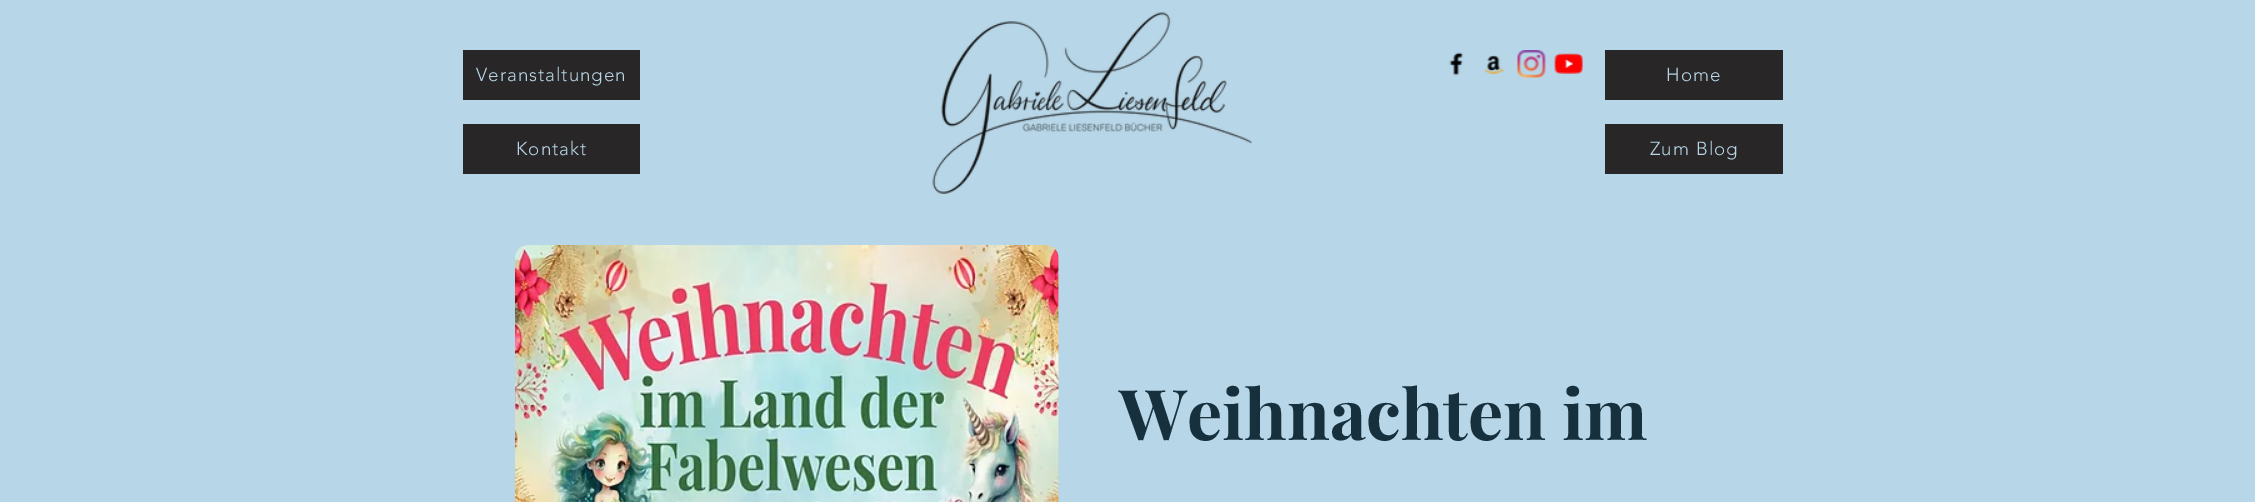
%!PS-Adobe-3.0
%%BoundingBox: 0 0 2255 502
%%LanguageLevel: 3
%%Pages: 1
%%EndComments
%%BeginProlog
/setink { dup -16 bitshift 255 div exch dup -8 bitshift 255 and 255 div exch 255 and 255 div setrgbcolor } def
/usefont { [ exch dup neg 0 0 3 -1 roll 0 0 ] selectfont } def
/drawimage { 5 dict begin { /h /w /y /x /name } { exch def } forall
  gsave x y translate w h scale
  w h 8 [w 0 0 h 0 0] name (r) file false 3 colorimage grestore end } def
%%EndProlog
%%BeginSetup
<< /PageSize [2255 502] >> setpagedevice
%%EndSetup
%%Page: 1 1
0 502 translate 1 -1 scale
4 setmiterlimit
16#B7D6E7 setink
0 0 2255 502 rectfill
16#282626 setink
463 50 177 50 rectfill
/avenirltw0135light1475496-Light 18.75 usefont
16#B7D6E7 setink
476 81 moveto 1 0 (Veranstaltungen) ashow
(img1.raw) 932 12 321 182 drawimage
(img2.raw) 1449 52 15 24 drawimage
(img3.raw) 1483 55 22 19 drawimage
(img4.raw) 1517 50 29 28 drawimage
(img5.raw) 1554 53 29 21 drawimage
16#282626 setink
1605 50 178 50 rectfill
16#B7D6E7 setink
1666 81 moveto 1 0 (Home) ashow
16#282626 setink
463 124 177 50 rectfill
16#B7D6E7 setink
516 155 moveto 1 0 (Kontakt) ashow
16#282626 setink
1605 124 178 50 rectfill
16#B7D6E7 setink
1650 155 moveto 1 0 (Zum Blog) ashow
(img6.raw) 515 245 544 257 drawimage
/PlayfairDisplay-Bold 70 usefont
16#17303D setink
1119 440 moveto (Weihnachten im) show
showpage
%%EOF
